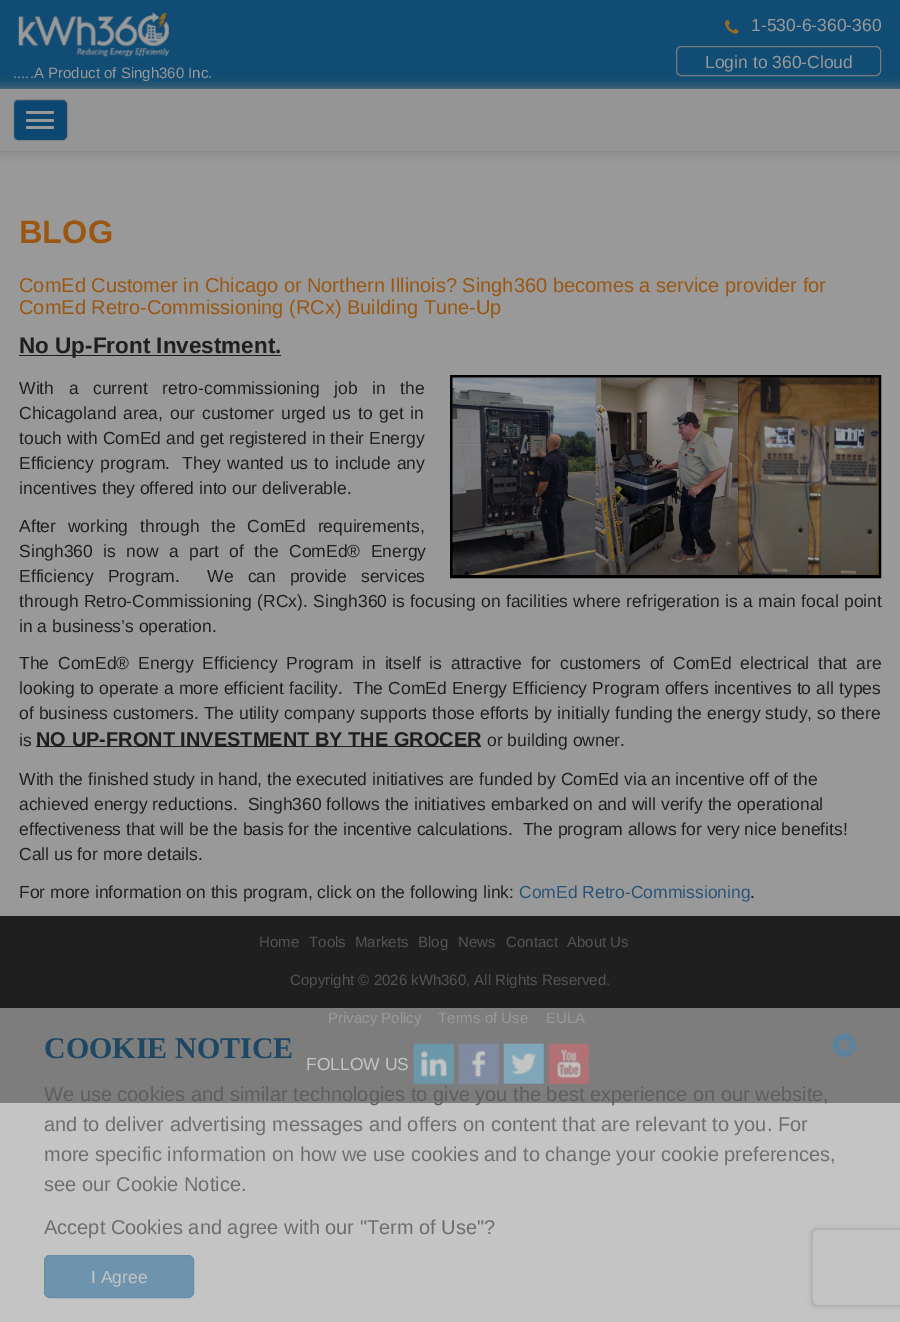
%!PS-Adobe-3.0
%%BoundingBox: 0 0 900 1322
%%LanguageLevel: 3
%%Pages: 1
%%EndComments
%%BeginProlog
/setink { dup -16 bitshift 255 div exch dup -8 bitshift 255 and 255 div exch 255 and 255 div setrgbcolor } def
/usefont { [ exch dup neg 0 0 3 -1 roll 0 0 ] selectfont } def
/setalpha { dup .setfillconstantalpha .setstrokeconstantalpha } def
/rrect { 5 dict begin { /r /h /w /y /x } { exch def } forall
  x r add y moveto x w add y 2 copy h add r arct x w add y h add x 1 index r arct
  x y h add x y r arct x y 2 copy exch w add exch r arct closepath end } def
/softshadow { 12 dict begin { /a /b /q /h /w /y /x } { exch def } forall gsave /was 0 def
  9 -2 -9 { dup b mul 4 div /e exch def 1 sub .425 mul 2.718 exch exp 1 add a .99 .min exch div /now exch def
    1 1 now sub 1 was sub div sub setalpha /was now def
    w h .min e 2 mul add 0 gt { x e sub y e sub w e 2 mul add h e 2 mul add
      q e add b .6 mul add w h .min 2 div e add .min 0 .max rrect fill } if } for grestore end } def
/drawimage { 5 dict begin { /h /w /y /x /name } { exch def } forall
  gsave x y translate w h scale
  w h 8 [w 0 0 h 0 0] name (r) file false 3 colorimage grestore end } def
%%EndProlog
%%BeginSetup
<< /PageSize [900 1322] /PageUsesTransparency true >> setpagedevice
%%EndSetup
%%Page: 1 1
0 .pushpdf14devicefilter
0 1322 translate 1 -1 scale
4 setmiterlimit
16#999999 setink
0 0 900 1322 rectfill
16#C4C4C4 setink
0 1103 900 219 rectfill
16#104C73 setink
0 0 900 89 rectfill
(img1.raw) 725 20 14 14 drawimage
/LiberationSans-Regular 17.5 usefont
16#999999 setink
751 31 moveto (1-530-6-360-360) show
16#7A7A7A setink
676.5 46.5 204 29 4.5 rrect stroke
16#999999 setink
705 68 moveto (Login to 360-Cloud) show
(img2.raw) 18 12 151 45 drawimage
/LiberationSans-Regular 15 usefont
13 78 moveto (.....A Product of Singh360 Inc.) show
16#7A7A7A setink
0 89 900 62 0 6 1 softshadow
16#959595 setink
0 89 900 62 rectfill
16#0B4771 setink
13.5 99.5 54 41 4.5 rrect gsave fill grestore
16#858585 setink
stroke
16#999999 setink
26 111 28 3 1.5 rrect fill
26 119 28 3 1.5 rrect fill
26 126 28 3 1.5 rrect fill
/LiberationSans-Bold 32.5 usefont
16#995713 setink
19 243 moveto (BLOG) show
/LiberationSans-Regular 20 usefont
19 292 moveto (ComEd Customer in Chicago or Northern Illinois? Singh360 becomes a service provider for) show
19 314 moveto (ComEd Retro-Commissioning \(RCx\) Building Tune-Up) show
16#1F1F1F setink
19 355 262 1 rectfill
/LiberationSans-Bold 22.5 usefont
19 353 moveto (No Up-Front Investment.) show
/LiberationSans-Regular 17.5 usefont
19 394 moveto 9.75 0 32 (With a current retro-commissioning job in the) widthshow
16#000000 setink
3 setlinewidth
451.5 376.5 428 200 rectstroke
(img3.raw) 452 377 427 198 drawimage
16#1F1F1F setink
19 419 moveto 2 0 32 (Chicagoland area, our customer urged us to get in) widthshow
19 444 moveto (touch with ComEd and get registered in their Energy) show
19 469 moveto 1.25 0 32 (Efficiency program.  They wanted us to include any) widthshow
19 494 moveto (incentives they offered into our deliverable.) show
19 532 moveto 7 0 32 (After working through the ComEd requirements,) widthshow
19 557 moveto 5.5 0 32 (Singh360 is now a part of the ComEd® Energy) widthshow
19 582 moveto 9 0 32 (Efficiency Program.  We can provide services) widthshow
19 607 moveto 0.5 0 32 (through Retro-Commissioning \(RCx\). Singh360 is focusing on facilities where refrigeration is a main focal point) widthshow
19 632 moveto (in a business’s operation.) show
19 669 moveto 4 0 32 (The ComEd® Energy Efficiency Program in itself is attractive for customers of ComEd electrical that are) widthshow
19 694 moveto 0.3 0 32 (looking to operate a more efficient facility.  The ComEd Energy Efficiency Program offers incentives to all types) widthshow
19 719 moveto 0.25 0 32 (of business customers. The utility company supports those efforts by initially funding the energy study, so there) widthshow
19 746 moveto (is) show
36 746 445 1 rectfill
/LiberationSans-Bold 20 usefont
36 746 moveto (NO UP-FRONT INVESTMENT BY THE GROCER) show
/LiberationSans-Regular 17.5 usefont
[
    [(or building owner.) 487 746]
    [(With the finished study in hand, the executed initiatives are funded by ComEd via an incentive off of the) 19 785]
    [(achieved energy reductions.  Singh360 follows the initiatives embarked on and will verify the operational) 19 810]
    [(effectiveness that will be the basis for the incentive calculations.  The program allows for very nice benefits!) 19 835]
    [(Call us for more details.) 19 860]
    [(For more information on this program, click on the following link:) 19 898]
] { aload pop moveto show } forall
16#285379 setink
519 898 moveto (ComEd Retro-Commissioning) show
16#1F1F1F setink
750 898 moveto (.) show
0 916 900 92 rectfill
16#7D7D7D setink
0 1008 900 95 rectfill
/LiberationSans-Regular 15 usefont
16#545454 setink
[
    [(Home) 259 947]
    [(Tools) 309 947]
    [(Markets) 355 947]
    [(Blog) 418 947]
    [(News) 458 947]
    [(Contact) 506 947]
    [(About Us) 567 947]
    [(Copyright © 2026 kWh360, All Rights Reserved.) 290 985]
] { aload pop moveto show } forall
16#999999 setink
[
    [(Privacy Policy) 328 1023]
    [(Terms of Use) 438 1023]
    [(EULA) 546 1023]
] { aload pop moveto show } forall
/LiberationSans-Regular 17.5 usefont
16#C4C4C4 setink
306 1070 moveto (FOLLOW US) show
(img4.raw) 413 1043 41 41 drawimage
(img5.raw) 458 1043 41 41 drawimage
(img6.raw) 503 1043 41 41 drawimage
(img7.raw) 548 1043 41 41 drawimage
/LiberationSerif-Bold 30 usefont
16#1D4763 setink
44 1058 moveto (COOKIE NOTICE) show
(img8.raw) 832 1033 24 24 drawimage
/LiberationSans-Regular 20 usefont
16#5E5E5E setink
44 1101 moveto (We use cookies and similar technologies to give you the best experience on our website,) show
16#6E6E6E setink
[
    [(and to deliver advertising messages and offers on content that are relevant to you. For) 44 1131]
    [(more specific information on how we use cookies and to change your cookie preferences,) 44 1161]
    [(see our Cookie Notice.) 44 1191]
    [(Accept Cookies and agree with our "Term of Use"?) 44 1234]
] { aload pop moveto show } forall
16#6E93AC setink
44 1255 150 43 6 rrect fill
0.9 setalpha
16#648EA9 setink
1 setlinewidth
44.5 1255.5 149 42 5.5 rrect stroke
/LiberationSans-Regular 17.5 usefont
1 setalpha
16#C4C4C4 setink
91 1283 moveto (I Agree) show
gsave
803 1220 moveto 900 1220 lineto 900 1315 lineto 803 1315 lineto closepath 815.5 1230 moveto 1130.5 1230 lineto 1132 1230 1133 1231 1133 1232.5 curveto 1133 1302.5 lineto 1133 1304 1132 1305 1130.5 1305 curveto 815.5 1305 lineto 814 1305 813 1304 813 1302.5 curveto 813 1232.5 lineto 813 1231 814 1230 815.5 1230 curveto closepath eoclip newpath
16#989898 setink
813 1230 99 75 2.5 3 1 softshadow
grestore
.poppdf14devicefilter showpage
%%EOF
